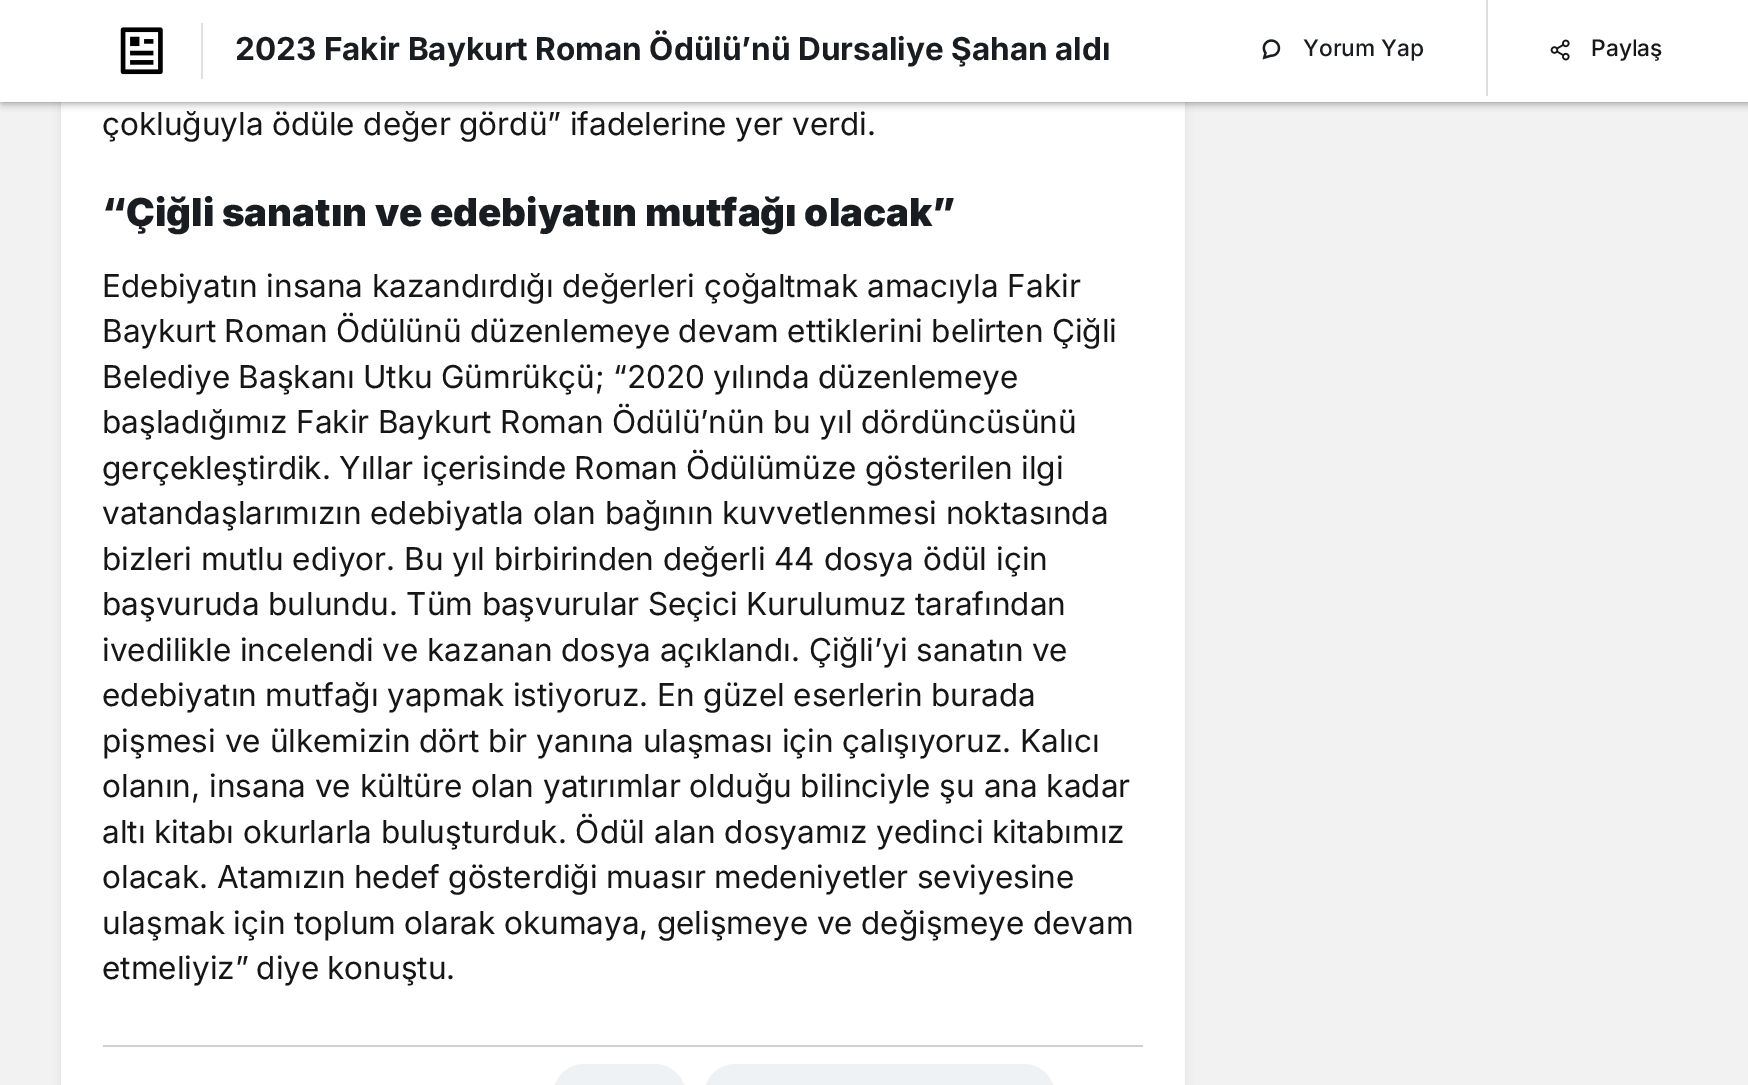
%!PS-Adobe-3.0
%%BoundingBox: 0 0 1748 1085
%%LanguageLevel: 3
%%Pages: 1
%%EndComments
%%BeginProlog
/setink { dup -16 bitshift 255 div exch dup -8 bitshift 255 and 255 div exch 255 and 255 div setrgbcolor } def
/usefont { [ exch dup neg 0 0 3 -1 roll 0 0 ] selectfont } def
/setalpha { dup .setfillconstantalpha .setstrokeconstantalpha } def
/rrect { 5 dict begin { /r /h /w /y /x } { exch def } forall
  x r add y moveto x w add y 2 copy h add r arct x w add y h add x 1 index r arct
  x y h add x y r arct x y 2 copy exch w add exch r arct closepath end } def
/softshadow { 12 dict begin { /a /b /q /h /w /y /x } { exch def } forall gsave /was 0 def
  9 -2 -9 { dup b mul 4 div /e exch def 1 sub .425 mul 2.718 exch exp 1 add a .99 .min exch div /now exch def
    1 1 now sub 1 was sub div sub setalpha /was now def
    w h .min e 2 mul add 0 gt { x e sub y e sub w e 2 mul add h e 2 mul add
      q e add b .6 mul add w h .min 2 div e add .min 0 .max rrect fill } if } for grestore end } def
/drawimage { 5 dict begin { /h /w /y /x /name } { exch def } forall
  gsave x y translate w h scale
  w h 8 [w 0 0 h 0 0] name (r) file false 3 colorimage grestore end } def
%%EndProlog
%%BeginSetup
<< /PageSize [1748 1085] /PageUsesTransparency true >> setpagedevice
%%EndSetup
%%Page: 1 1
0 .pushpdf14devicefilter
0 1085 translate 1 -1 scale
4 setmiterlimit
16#F2F2F3 setink
0 0 1748 1085 rectfill
16#32353D setink
61 -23 1124 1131 9 4.5 0.1 softshadow
16#FFFFFF setink
61 102 1124 983 rectfill
16#000000 setink
2 0 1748 102 0 4.5 0.5 softshadow
16#FFFFFF setink
0 0 1748 102 rectfill
(img1.raw) 120 27 43 48 drawimage
16#DEDFE2 setink
201 23 2 56 rectfill
/Inter-Bold 31.5 usefont
16#191C20 setink
235 60 moveto (2023 Fakir Baykurt Roman Ödülü’nü Dursaliye Şahan aldı) show
(img2.raw) 1262 39 19 21 drawimage
/Inter-Medium 22.75 usefont
1303 56 moveto (Yorum Yap) show
16#DEDFE2 setink
1486 0 2 96 rectfill
(img3.raw) 1550 39 20 22 drawimage
16#161616 setink
1591 56 moveto (Paylaş) show
/Inter-Regular 31.5 usefont
102 135 moveto -0.25 0 32 (çokluğuyla ödüle değer gördü” ifadelerine yer verdi.) widthshow
/Inter-Black 38.5 usefont
16#191C20 setink
102 226 moveto (“Çiğli sanatın ve edebiyatın mutfağı olacak”) show
/Inter-Regular 31.5 usefont
16#161616 setink
102 297 moveto (Edebiyatın insana kazandırdığı değerleri çoğaltmak amacıyla Fakir) show
102 342 moveto -0.5 0 32 (Baykurt Roman Ödülünü düzenlemeye devam ettiklerini belirten Çiğli) widthshow
102 388 moveto -0.5 0 32 (Belediye Başkanı Utku Gümrükçü; “2020 yılında düzenlemeye) widthshow
102 433 moveto -0.25 0 32 (başladığımız Fakir Baykurt Roman Ödülü’nün bu yıl dördüncüsünü) widthshow
102 479 moveto -0.25 0 32 (gerçekleştirdik. Yıllar içerisinde Roman Ödülümüze gösterilen ilgi) widthshow
102 524 moveto (vatandaşlarımızın edebiyatla olan bağının kuvvetlenmesi noktasında) show
102 570 moveto (bizleri mutlu ediyor. Bu yıl birbirinden değerli 44 dosya ödül için) show
102 615 moveto -0.25 0 32 (başvuruda bulundu. Tüm başvurular Seçici Kurulumuz tarafından) widthshow
102 661 moveto -0.25 0 32 (ivedilikle incelendi ve kazanan dosya açıklandı. Çiğli’yi sanatın ve) widthshow
102 706 moveto -0.25 0 32 (edebiyatın mutfağı yapmak istiyoruz. En güzel eserlerin burada) widthshow
[
    [(pişmesi ve ülkemizin dört bir yanına ulaşması için çalışıyoruz. Kalıcı) 102 752]
    [(olanın, insana ve kültüre olan yatırımlar olduğu bilinciyle şu ana kadar) 102 797]
    [(altı kitabı okurlarla buluşturduk. Ödül alan dosyamız yedinci kitabımız) 102 843]
] { aload pop moveto show } forall
102 888 moveto -0.5 0 32 (olacak. Atamızın hedef gösterdiği muasır medeniyetler seviyesine) widthshow
102 934 moveto -0.5 0 32 (ulaşmak için toplum olarak okumaya, gelişmeye ve değişmeye devam) widthshow
102 979 moveto -1 0 32 (etmeliyiz” diye konuştu.) widthshow
16#CED0D4 setink
103 1045 1040 2 rectfill
16#EEF2F5 setink
553 1064 133 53 31.5 rrect fill
704 1064 351 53 31.5 rrect fill
.poppdf14devicefilter showpage
%%EOF
